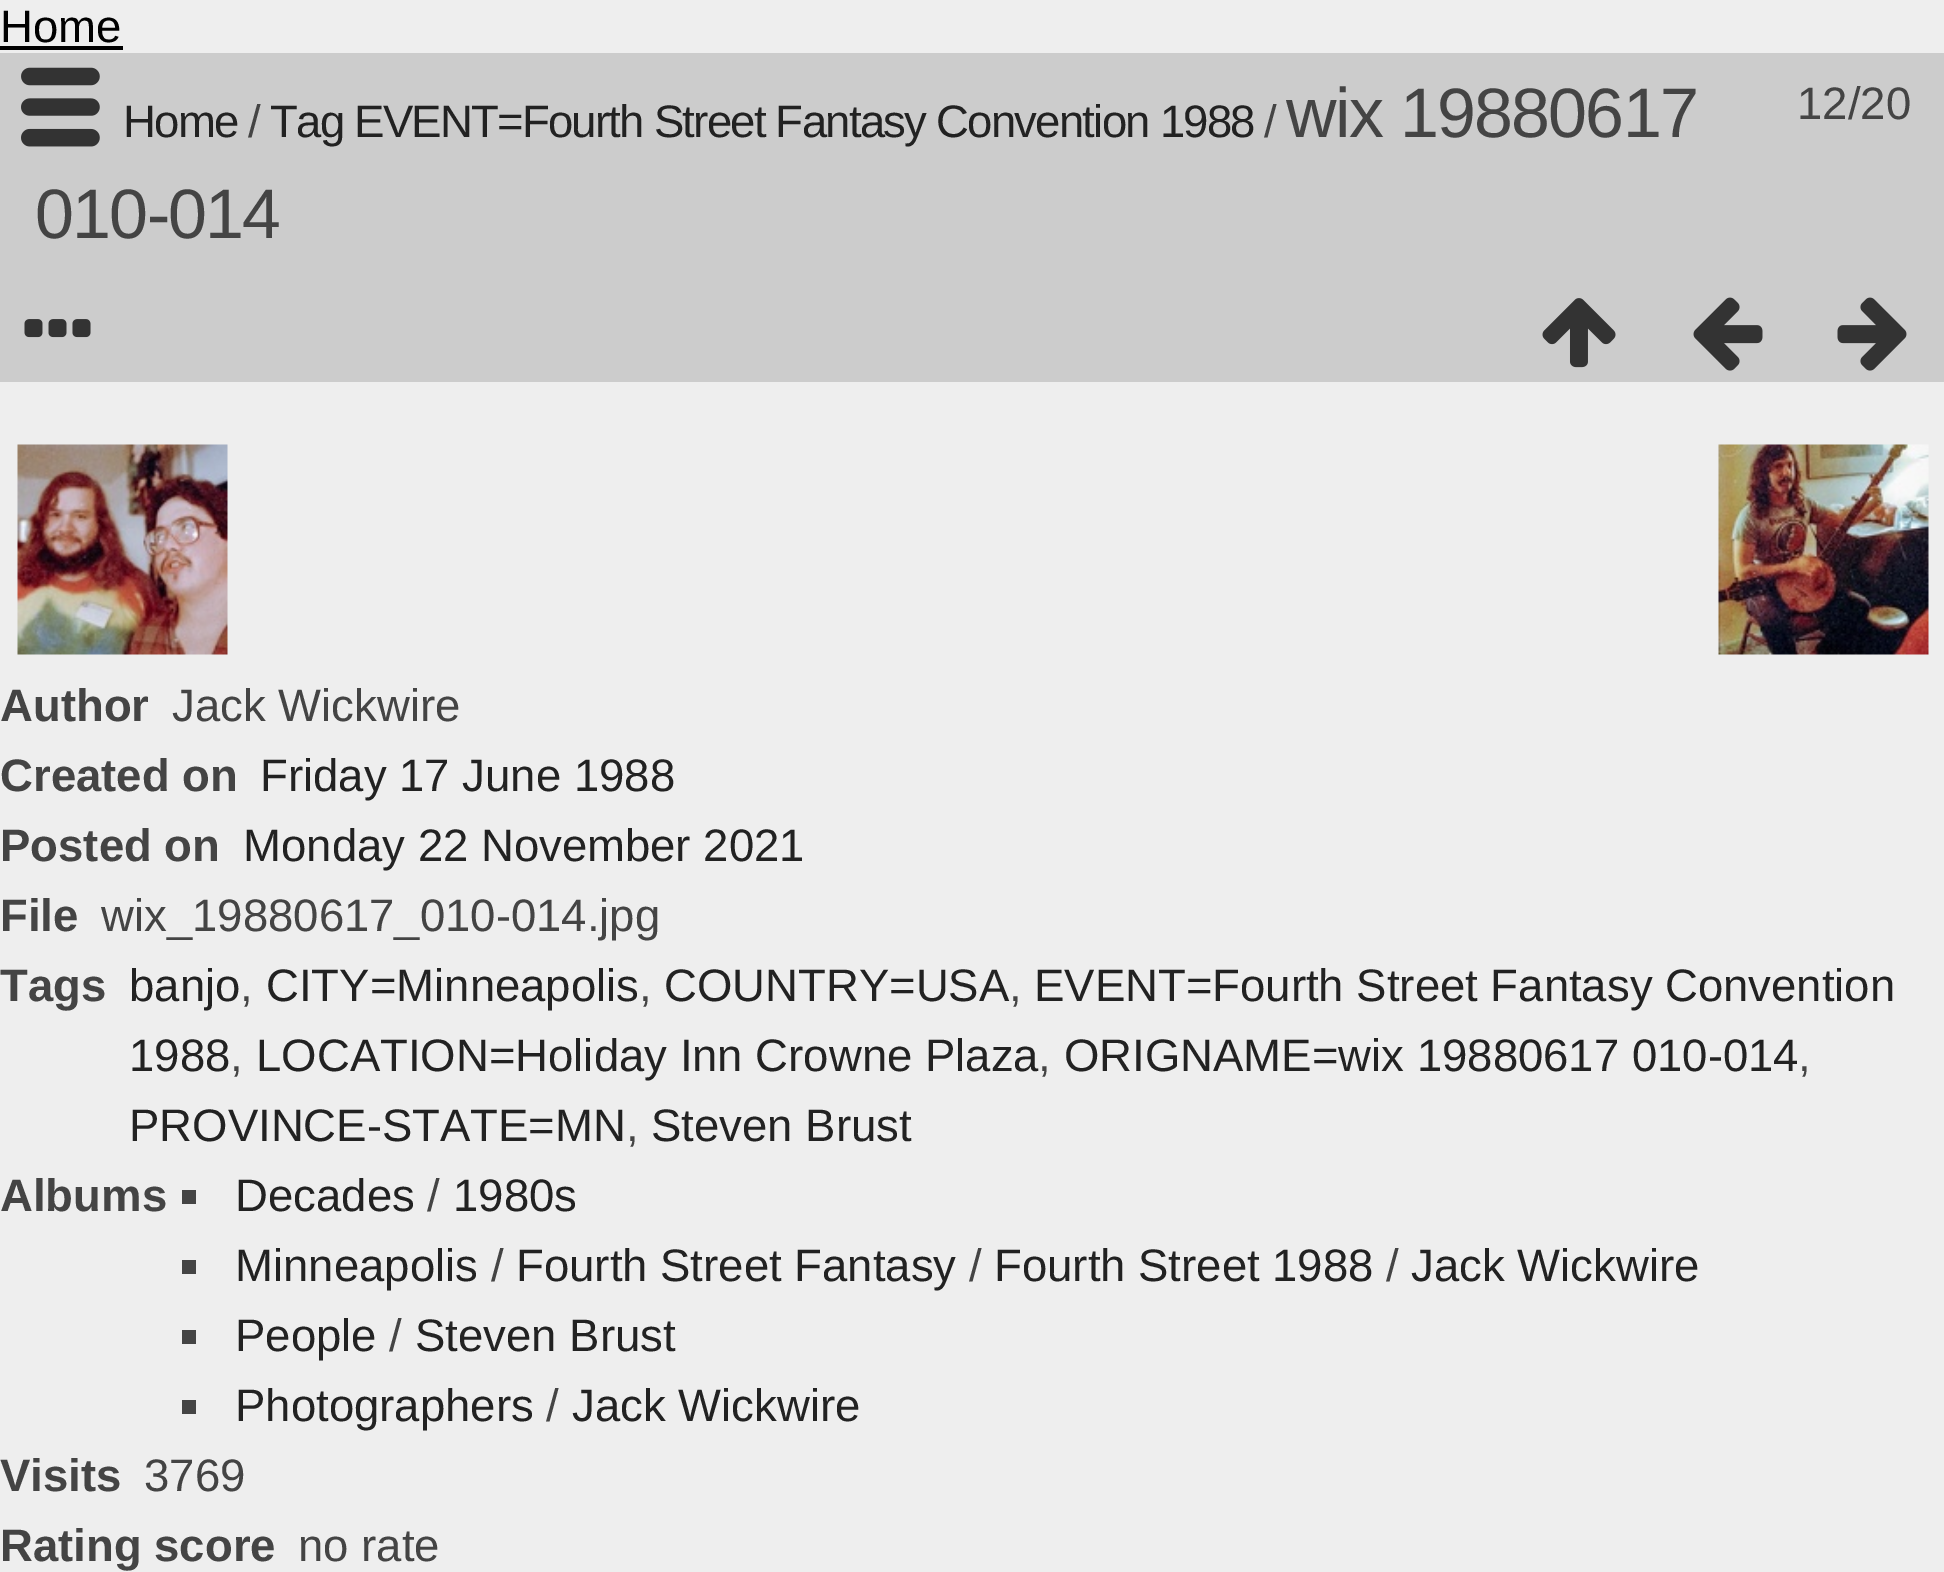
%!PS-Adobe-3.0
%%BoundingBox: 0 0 1944 1572
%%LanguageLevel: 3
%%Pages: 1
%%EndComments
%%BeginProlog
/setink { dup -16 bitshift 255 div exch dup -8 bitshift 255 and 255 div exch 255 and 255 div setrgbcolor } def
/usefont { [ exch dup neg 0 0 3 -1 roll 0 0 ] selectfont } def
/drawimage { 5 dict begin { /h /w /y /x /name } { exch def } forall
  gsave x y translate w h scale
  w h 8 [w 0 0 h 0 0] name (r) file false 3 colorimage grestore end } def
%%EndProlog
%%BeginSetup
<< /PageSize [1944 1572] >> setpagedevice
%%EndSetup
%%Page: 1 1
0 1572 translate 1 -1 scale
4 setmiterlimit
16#EEEEEE setink
0 0 1944 1572 rectfill
/LiberationSans-Regular 45.5 usefont
16#000000 setink
0 42 moveto (Home) show
0 46 123 4 rectfill
16#CCCCCC setink
0 53 1944 329 rectfill
(img1.raw) 21 67 79 80 drawimage
16#222222 setink
123 137 moveto -1.75 0 (Home) ashow
16#444444 setink
248 137 moveto -1.75 0 (/) ashow
16#222222 setink
270 137 moveto -1.75 0 (Tag EVENT=Fourth Street Fantasy Convention 1988) ashow
16#444444 setink
1264 137 moveto -1.75 0 (/) ashow
/LiberationSans-Regular 70 usefont
1286 137 moveto -1.75 0 (wix 19880617) ashow
35 238 moveto -1.75 0 (010-014) ashow
/LiberationSans-Regular 45.5 usefont
1797 119 moveto (12/20) show
(img2.raw) 24 319 67 19 drawimage
(img3.raw) 1542 298 74 70 drawimage
(img4.raw) 1693 297 70 74 drawimage
(img5.raw) 1837 297 70 74 drawimage
(img6.raw) 17 444 211 211 drawimage
(img7.raw) 1718 444 211 211 drawimage
/LiberationSans-Bold 45.5 usefont
0 721 moveto (Author) show
/LiberationSans-Regular 45.5 usefont
172 721 moveto (Jack Wickwire) show
/LiberationSans-Bold 45.5 usefont
0 791 moveto (Created on) show
/LiberationSans-Regular 45.5 usefont
16#222222 setink
260 791 moveto (Friday 17 June 1988) show
/LiberationSans-Bold 45.5 usefont
16#444444 setink
0 861 moveto (Posted on) show
/LiberationSans-Regular 45.5 usefont
16#222222 setink
243 861 moveto (Monday 22 November 2021) show
/LiberationSans-Bold 45.5 usefont
16#444444 setink
0 931 moveto (File) show
/LiberationSans-Regular 45.5 usefont
101 931 moveto (wix_19880617_010-014.jpg) show
/LiberationSans-Bold 45.5 usefont
0 1001 moveto (Tags) show
/LiberationSans-Regular 45.5 usefont
16#222222 setink
129 1001 moveto (banjo) show
16#444444 setink
240 1001 moveto (,) show
16#222222 setink
266 1001 moveto (CITY=Minneapolis) show
16#444444 setink
639 1001 moveto (,) show
16#222222 setink
664 1001 moveto (COUNTRY=USA) show
16#444444 setink
1009 1001 moveto (,) show
16#222222 setink
1034 1001 moveto (EVENT=Fourth Street Fantasy Convention) show
129 1071 moveto (1988) show
16#444444 setink
230 1071 moveto (,) show
16#222222 setink
256 1071 moveto (LOCATION=Holiday Inn Crowne Plaza) show
16#444444 setink
1038 1071 moveto (,) show
16#222222 setink
1064 1071 moveto (ORIGNAME=wix 19880617 010-014) show
16#444444 setink
1798 1071 moveto (,) show
16#222222 setink
129 1141 moveto (PROVINCE-STATE=MN) show
16#444444 setink
626 1141 moveto (,) show
16#222222 setink
651 1141 moveto (Steven Brust) show
/LiberationSans-Bold 45.5 usefont
16#444444 setink
0 1211 moveto (Albums) show
182 1190 14 14 rectfill
/LiberationSans-Regular 45.5 usefont
16#222222 setink
235 1211 moveto (Decades) show
16#444444 setink
427 1211 moveto (/) show
16#222222 setink
453 1211 moveto (1980s) show
16#444444 setink
182 1260 14 14 rectfill
16#222222 setink
235 1281 moveto (Minneapolis) show
16#444444 setink
491 1281 moveto (/) show
16#222222 setink
516 1281 moveto (Fourth Street Fantasy) show
16#444444 setink
969 1281 moveto (/) show
16#222222 setink
994 1281 moveto (Fourth Street 1988) show
16#444444 setink
1386 1281 moveto (/) show
16#222222 setink
1411 1281 moveto (Jack Wickwire) show
16#444444 setink
182 1330 14 14 rectfill
16#222222 setink
235 1351 moveto (People) show
16#444444 setink
389 1351 moveto (/) show
16#222222 setink
415 1351 moveto (Steven Brust) show
16#444444 setink
182 1400 14 14 rectfill
16#222222 setink
235 1421 moveto (Photographers) show
16#444444 setink
546 1421 moveto (/) show
16#222222 setink
572 1421 moveto (Jack Wickwire) show
/LiberationSans-Bold 45.5 usefont
16#444444 setink
0 1491 moveto (Visits) show
/LiberationSans-Regular 45.5 usefont
144 1491 moveto (3769) show
/LiberationSans-Bold 45.5 usefont
0 1561 moveto (Rating score) show
/LiberationSans-Regular 45.5 usefont
298 1561 moveto (no rate) show
showpage
%%EOF
